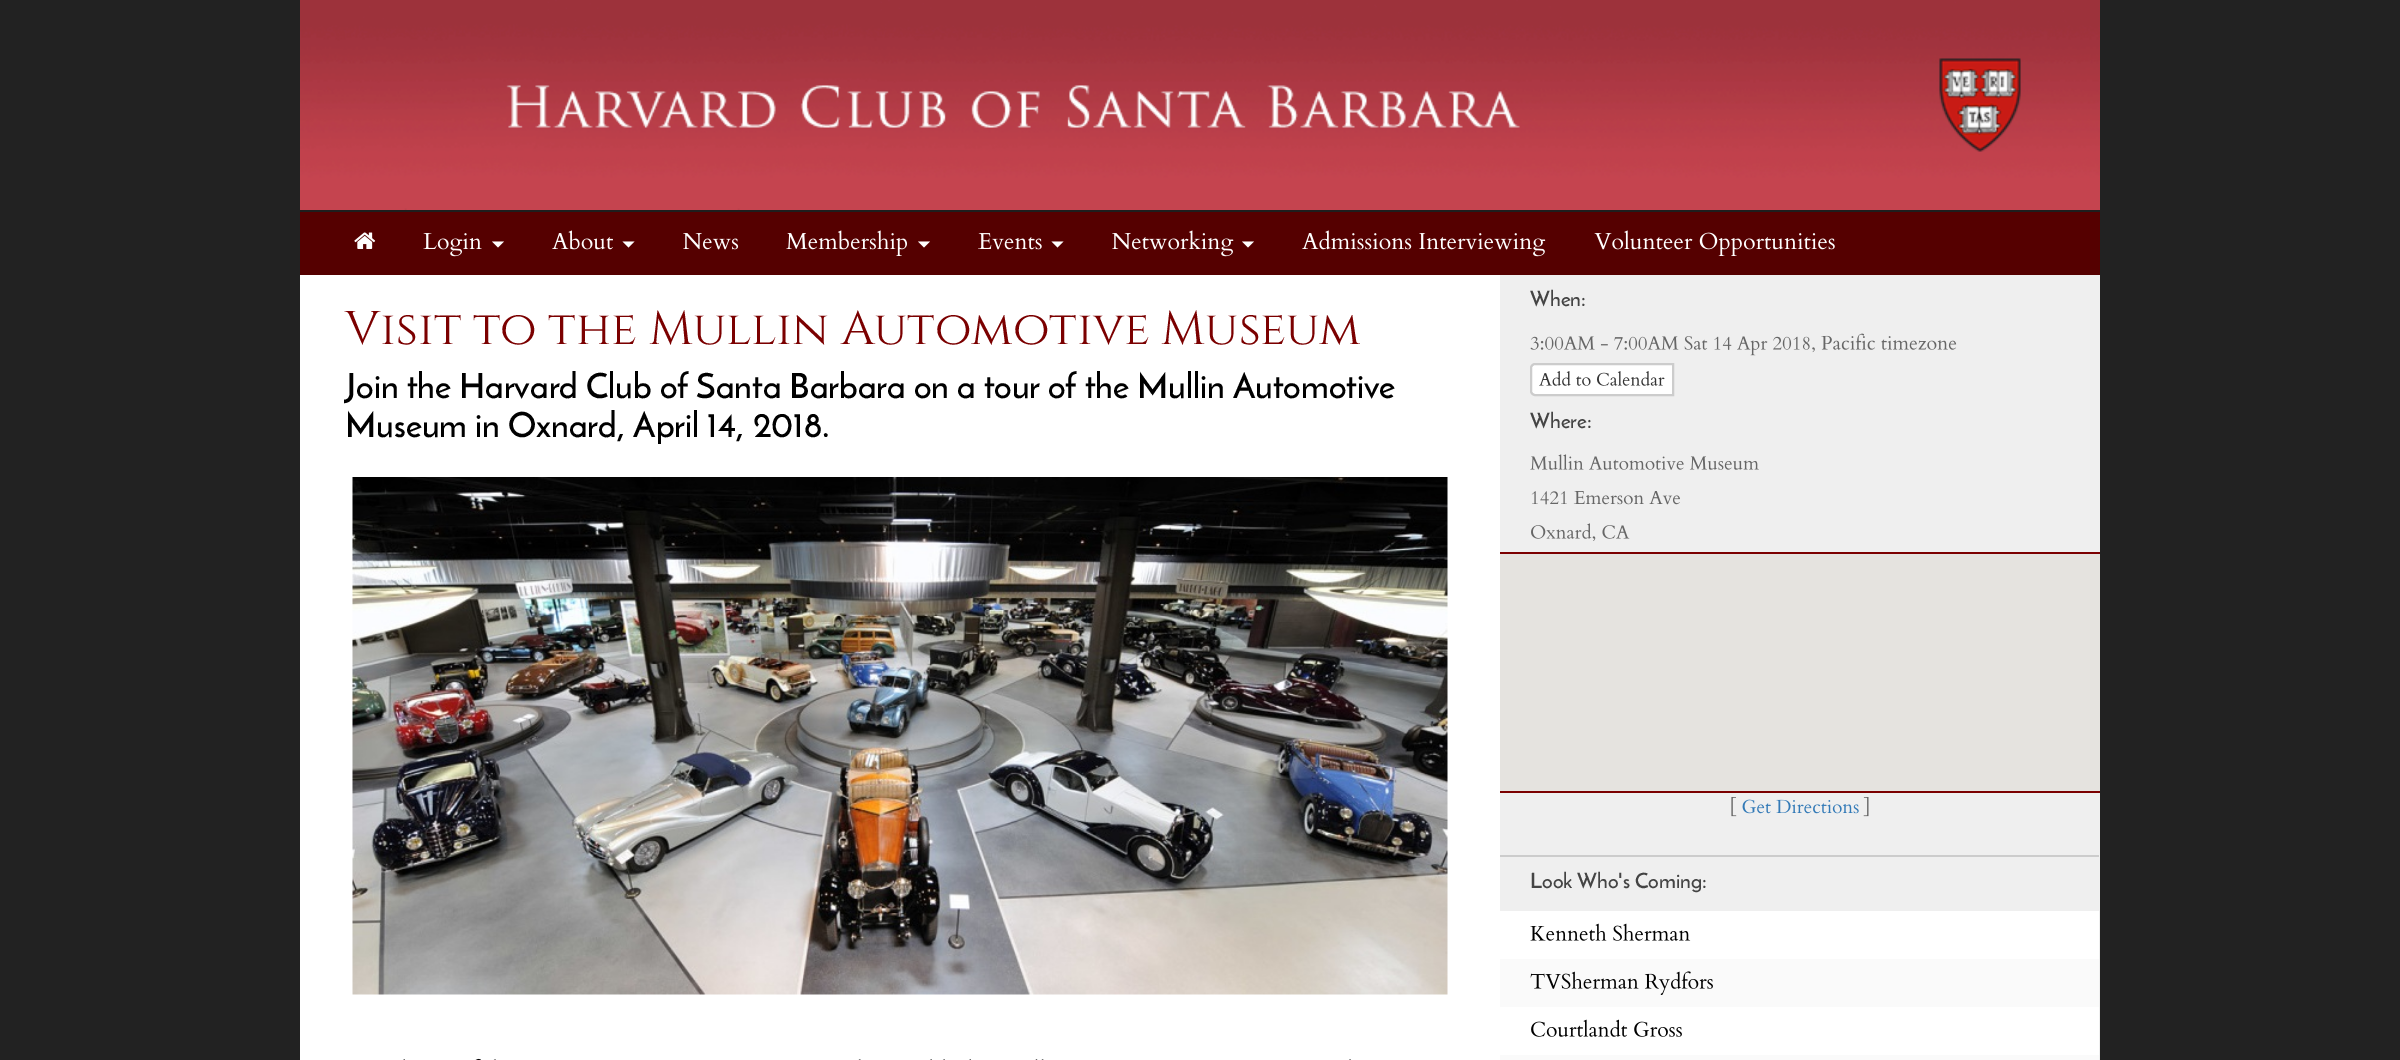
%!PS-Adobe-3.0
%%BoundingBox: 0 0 2400 1060
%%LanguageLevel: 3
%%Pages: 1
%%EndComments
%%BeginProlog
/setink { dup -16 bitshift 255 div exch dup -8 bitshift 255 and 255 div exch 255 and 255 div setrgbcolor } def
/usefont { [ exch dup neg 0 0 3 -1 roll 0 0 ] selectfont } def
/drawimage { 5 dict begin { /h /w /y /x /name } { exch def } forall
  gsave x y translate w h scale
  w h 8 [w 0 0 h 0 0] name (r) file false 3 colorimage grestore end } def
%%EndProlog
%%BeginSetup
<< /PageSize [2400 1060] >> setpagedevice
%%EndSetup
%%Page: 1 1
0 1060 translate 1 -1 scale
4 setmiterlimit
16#222222 setink
0 0 2400 1060 rectfill
16#FFFFFF setink
300 275 1200 785 rectfill
16#1E1E1E setink
300 210 1800 2 rectfill
(img1.raw) 300 0 1800 210 drawimage
16#550000 setink
300 212 1800 63 rectfill
(img2.raw) 354 232 22 17 drawimage
(img3.raw) 423 233 59 24 drawimage
16#FFFFFF setink
492 241.5 moveto 504 241.5 lineto 498 247.5 lineto closepath fill
(img4.raw) 552 230 61 20 drawimage
622.5 241.5 moveto 634.5 241.5 lineto 628.5 247.5 lineto closepath fill
(img5.raw) 683 233 56 17 drawimage
(img6.raw) 786 230 121 26 drawimage
918 241.5 moveto 930 241.5 lineto 924 247.5 lineto closepath fill
(img7.raw) 978 233 64 17 drawimage
1051.5 241.5 moveto 1063.5 241.5 lineto 1057.5 247.5 lineto closepath fill
(img8.raw) 1112 230 122 27 drawimage
1242 241.5 moveto 1254 241.5 lineto 1248 247.5 lineto closepath fill
(img9.raw) 1302 230 244 27 drawimage
(img10.raw) 1594 230 241 26 drawimage
/Cinzel-Regular 47.25 usefont
16#7B0000 setink
345 344 moveto (Visit to the Mullin Automotive Museum) show
/JosefinSans-SemiBold 34.65 usefont
16#000000 setink
345 398 moveto (Join the Harvard Club of Santa Barbara on a tour of the Mullin Automotive) show
345 437 moveto (Museum in Oxnard, April 14, 2018.) show
(img11.raw) 352 477 1096 518 drawimage
(img12.raw) 403 1058 568 2 drawimage
(img13.raw) 1035 1059 9 1 drawimage
(img14.raw) 1349 1059 2 1 drawimage
16#EFEFEF setink
1500 275 600 636 rectfill
/JosefinSans-SemiBold 21 usefont
16#444444 setink
1530 306 moveto (When:) show
(img15.raw) 1530 336 285 20 drawimage
(img16.raw) 1821 333 136 17 drawimage
16#FFFFFF setink
1535 364 moveto 1673 364 lineto 1673 395 lineto 1535 395 lineto 1533 395 1531 393 1531 391 curveto 1531 368 lineto 1531 366 1533 364 1535 364 curveto closepath gsave fill grestore
16#CCCCCC setink
2 setlinewidth
stroke
(img17.raw) 1539 371 126 15 drawimage
16#444444 setink
1530 428 moveto (Where:) show
(img18.raw) 1530 454 229 16 drawimage
(img19.raw) 1531 491 149 14 drawimage
(img20.raw) 1531 523 99 18 drawimage
[
    [1500 552 600 2 16#7B0000]
    [1500 791 600 2 16#7B0000]
    [1500 554 600 237 16#E5E3DF]
] { aload pop setink rectfill } forall
(img21.raw) 1731 797 6 20 drawimage
(img22.raw) 1742 799 117 15 drawimage
(img23.raw) 1863 797 6 20 drawimage
16#CCCCCC setink
1500 855 600 2 rectfill
16#EFEFEF setink
2099 855 1 205 rectfill
16#444444 setink
1530 888 moveto (Look Who's Coming:) show
16#FFFFFF setink
1500 911 599 48 rectfill
(img24.raw) 1530 923 161 18 drawimage
16#FAFAFA setink
1500 959 599 48 rectfill
(img25.raw) 1530 971 183 24 drawimage
16#FFFFFF setink
1500 1007 599 48 rectfill
(img26.raw) 1531 1019 151 18 drawimage
16#FAFAFA setink
1500 1055 599 5 rectfill
showpage
%%EOF
